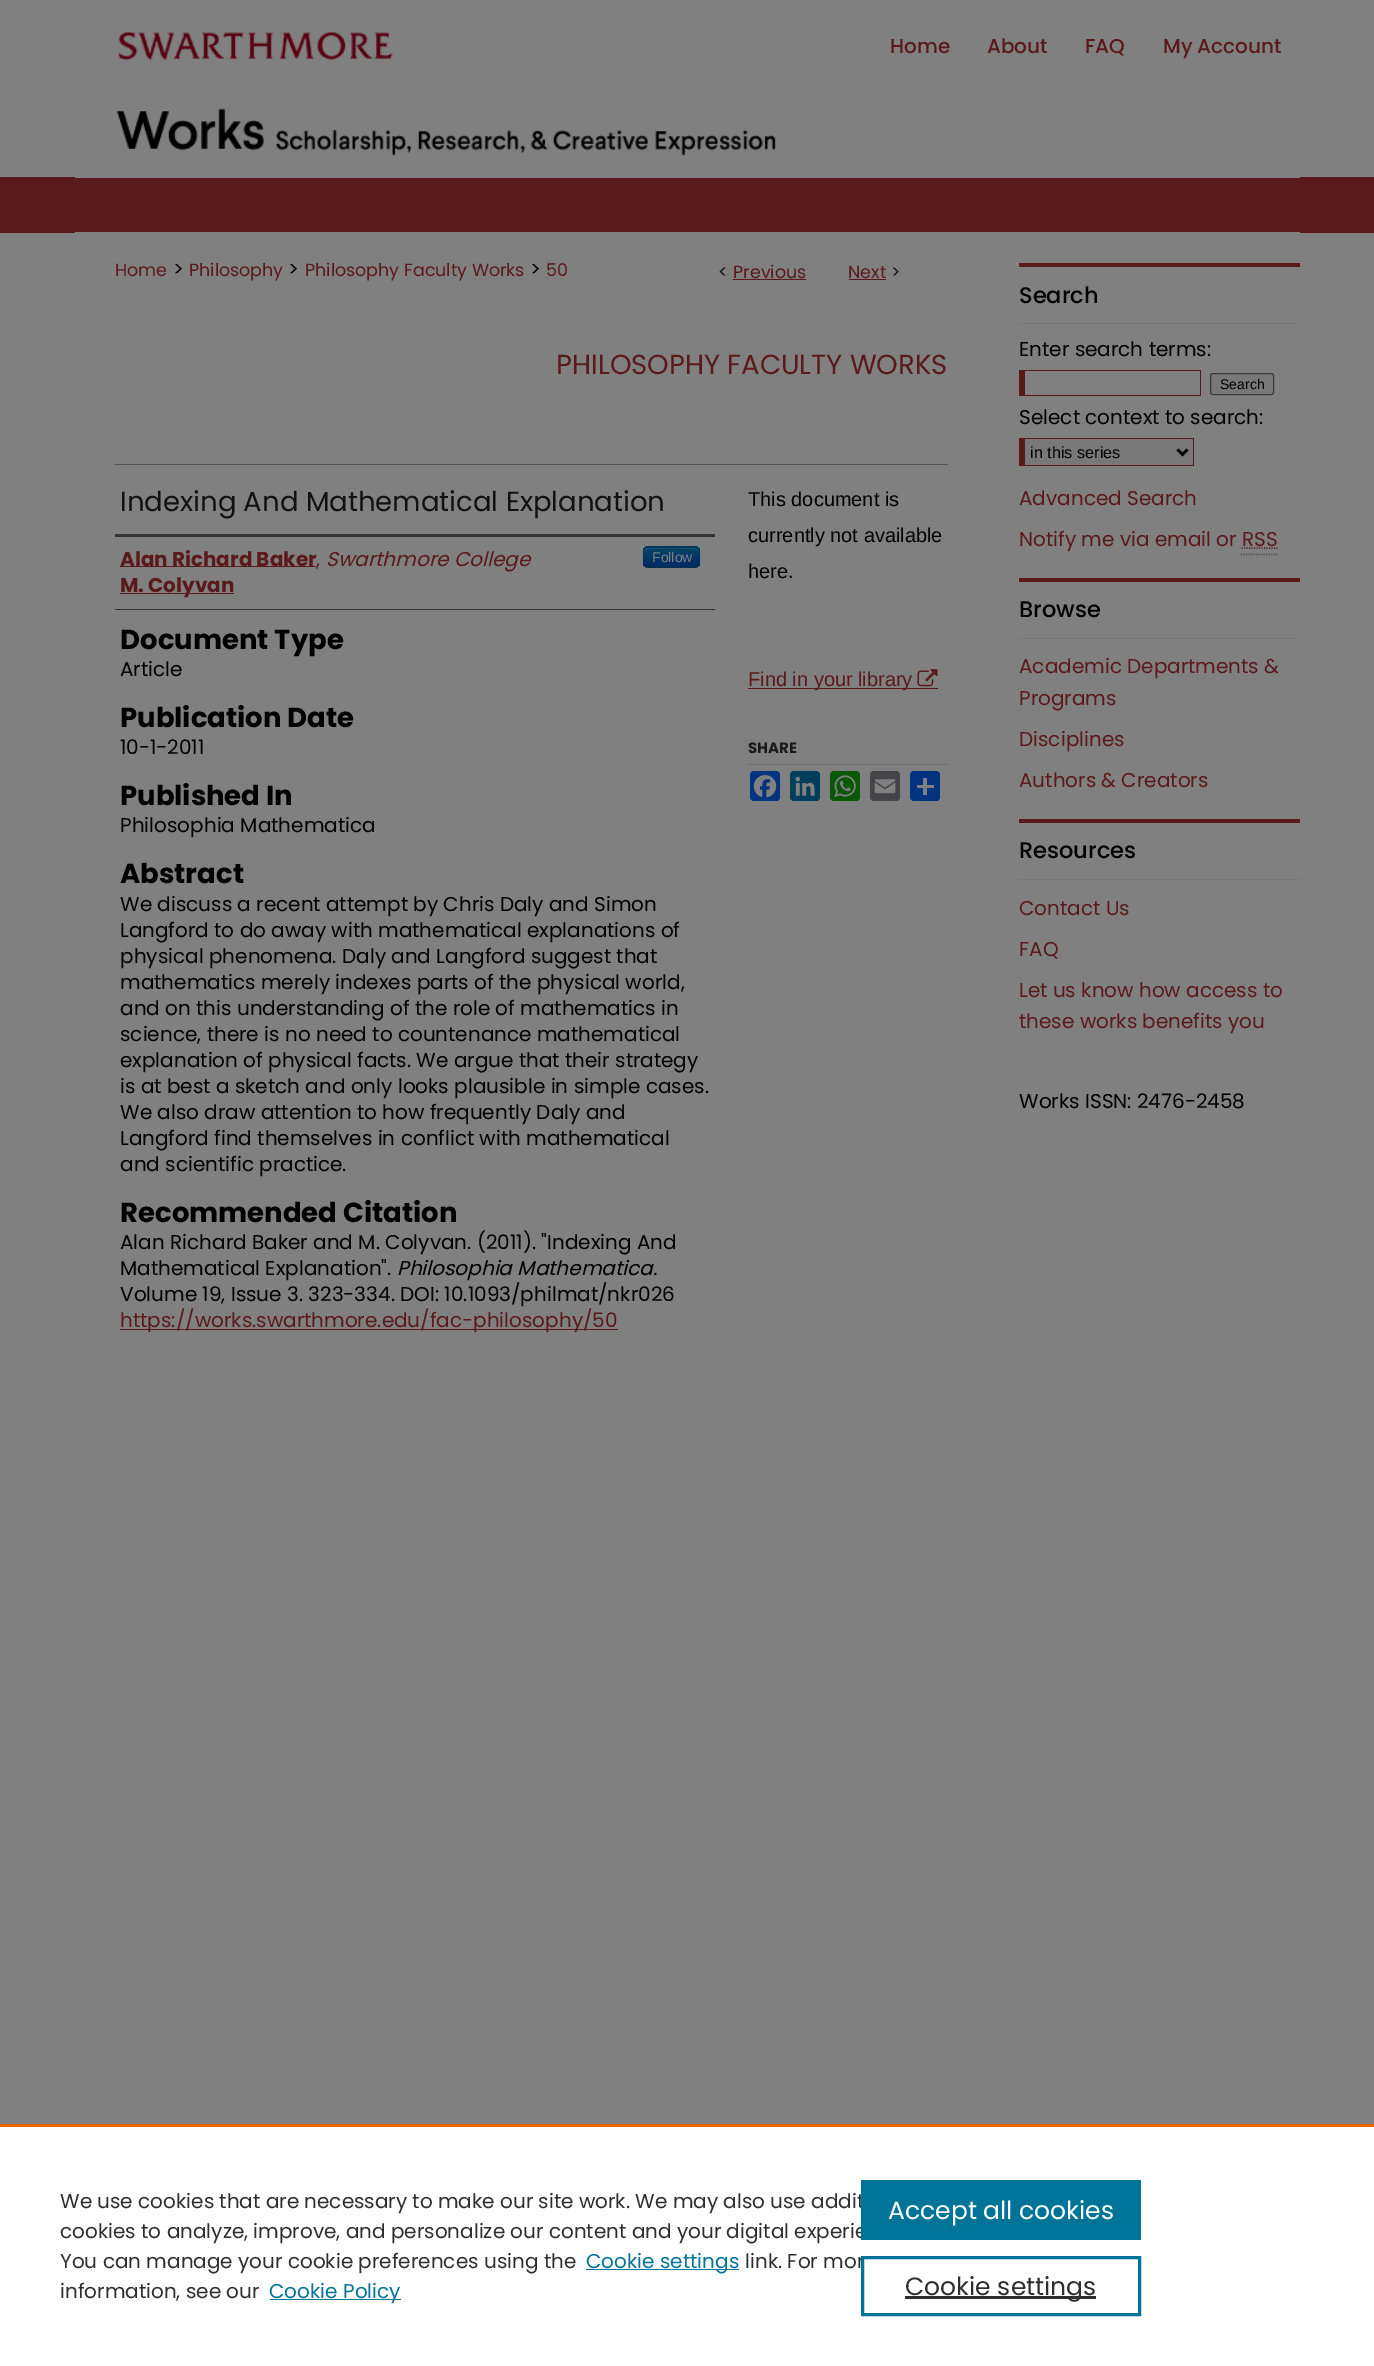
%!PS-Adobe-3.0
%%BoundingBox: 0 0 1374 2366
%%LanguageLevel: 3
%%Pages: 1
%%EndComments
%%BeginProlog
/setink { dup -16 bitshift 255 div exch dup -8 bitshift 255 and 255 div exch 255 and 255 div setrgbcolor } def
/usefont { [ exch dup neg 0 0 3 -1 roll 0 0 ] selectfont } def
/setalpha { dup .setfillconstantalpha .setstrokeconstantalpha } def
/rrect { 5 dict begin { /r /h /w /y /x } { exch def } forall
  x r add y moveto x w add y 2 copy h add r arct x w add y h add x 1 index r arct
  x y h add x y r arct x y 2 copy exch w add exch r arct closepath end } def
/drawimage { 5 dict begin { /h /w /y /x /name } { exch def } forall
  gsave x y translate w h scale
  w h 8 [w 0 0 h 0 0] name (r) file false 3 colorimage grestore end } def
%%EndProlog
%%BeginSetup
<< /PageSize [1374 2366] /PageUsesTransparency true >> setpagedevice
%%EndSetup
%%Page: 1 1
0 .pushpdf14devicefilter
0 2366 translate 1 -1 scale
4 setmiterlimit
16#808080 setink
0 0 1374 2366 rectfill
16#5A191B setink
0 177 1374 56 rectfill
(img1.raw) 118 32 275 29 drawimage
/Poppins-Medium 20 usefont
[
    [(Home) 890 53]
    [(About) 987 53]
    [(FAQ) 1085 53]
    [(My Account) 1163 53]
] { aload pop moveto show } forall
16#808080 setink
75 177 1225 1 rectfill
(img2.raw) 116 108 660 48 drawimage
75 232 1225 1 rectfill
/Poppins-Regular 17.5 usefont
16#5A191B setink
115 276 moveto (Home) show
/Poppins-Regular 20 usefont
16#000000 setink
173 276 moveto (>) show
/Poppins-Regular 17.5 usefont
16#5A191B setink
189 276 moveto (Philosophy) show
/Poppins-Regular 20 usefont
16#000000 setink
288 276 moveto (>) show
/Poppins-Regular 17.5 usefont
16#5A191B setink
305 276 moveto (Philosophy Faculty Works) show
/Poppins-Regular 20 usefont
16#000000 setink
530 276 moveto (>) show
/Poppins-Regular 17.5 usefont
16#5A191B setink
546 276 moveto (50) show
16#111111 setink
718 278 moveto (<) show
16#5A191B setink
733 278 moveto (Previous) show
733 279 73 1 rectfill
848 278 moveto (Next) show
849 279 37 1 rectfill
16#111111 setink
891 278 moveto (>) show
/Poppins-Regular 27.5 usefont
16#5A191B setink
556 374 moveto (PHILOSOPHY FACULTY WORKS) show
16#555555 setink
115 464 833 1 rectfill
16#111111 setink
120 511 moveto (Indexing And Mathematical Explanation) show
[
    [115 534 600 3 16#333333]
    [115 609 600 1 16#333333]
    [120 566 196 1 16#5A191B]
] { aload pop setink rectfill } forall
/Poppins-Bold 20 usefont
120 566 moveto (Alan Richard Baker) show
/Poppins-Regular 20 usefont
316 566 moveto (,) show
/Poppins-Italic 20 usefont
326 566 moveto (Swarthmore College) show
16#003A66 setink
643 546 57 22 5 rrect fill
gsave
643 546 57 22 5 rrect clip newpath
gsave 643 548 moveto 700 548 lineto 700 566 lineto 643 566 lineto closepath clip newpath
<< /ShadingType 2 /ColorSpace /DeviceRGB /Coords [671 548 671 566] /Extend [true true] /Function << /FunctionType 2 /Domain [0 1] /C0 [0 0.267 0.4] /C1 [0 0.169 0.4] /N 1 >> >> shfill grestore
grestore
0.2 setalpha
16#808080 setink
648 549 moveto 695 549 lineto 697 550 lineto 700 552 699 559 699 562 curveto 699 549 702 548 687 548 curveto 656 548 lineto 647 548 644 546 644 555 curveto 644 563 lineto 644 559 642 549 648 549 curveto closepath fill
0.25 setalpha
16#000000 setink
1.2 setlinewidth
698 565.5 moveto 697.5 566.5 696 567 695 567 curveto 647.5 567 lineto 646.5 567 645 566.5 644.5 565.5 curveto stroke
0.1 setalpha
644.5 565.5 moveto 642 563.5 643 559.5 643 557 curveto 643 546 644 547 655.5 547 curveto 687 547 lineto 698.5 547 699.5 546 699.5 557 curveto 699.5 559.5 700.5 563.5 698 565.5 curveto stroke
/LiberationSans-Regular 14 usefont
1 setalpha
16#808080 setink
652 562 moveto (Follow) show
16#5A191B setink
120 593 114 1 rectfill
/Poppins-Bold 20 usefont
120 592 moveto (M. Colyvan) show
/Poppins-Bold 27.5 usefont
16#000000 setink
120 649 moveto (Document Type) show
/Poppins-Regular 20 usefont
120 676 moveto (Article) show
/Poppins-Bold 27.5 usefont
120 727 moveto (Publication Date) show
/Poppins-Regular 20 usefont
120 754 moveto (10-1-2011) show
/Poppins-Bold 27.5 usefont
120 805 moveto (Published In) show
/Poppins-Regular 20 usefont
120 832 moveto (Philosophia Mathematica) show
/Poppins-Bold 27.5 usefont
120 883 moveto (Abstract) show
/Poppins-Regular 20 usefont
[
    [(We discuss a recent attempt by Chris Daly and Simon) 120 911]
    [(Langford to do away with mathematical explanations of) 120 937]
    [(physical phenomena. Daly and Langford suggest that) 120 963]
    [(mathematics merely indexes parts of the physical world,) 120 989]
    [(and on this understanding of the role of mathematics in) 120 1015]
    [(science, there is no need to countenance mathematical) 120 1041]
    [(explanation of physical facts. We argue that their strategy) 120 1067]
    [(is at best a sketch and only looks plausible in simple cases.) 120 1093]
    [(We also draw attention to how frequently Daly and) 120 1119]
    [(Langford find themselves in conflict with mathematical) 120 1145]
    [(and scientific practice.) 120 1171]
] { aload pop moveto show } forall
/Poppins-Bold 27.5 usefont
120 1222 moveto (Recommended Citation) show
/Poppins-Regular 20 usefont
120 1249 moveto (Alan Richard Baker and M. Colyvan. \(2011\). "Indexing And) show
120 1275 moveto (Mathematical Explanation".) show
/Poppins-Italic 20 usefont
397 1275 moveto (Philosophia Mathematica.) show
/Poppins-Regular 20 usefont
120 1301 moveto (Volume 19, Issue 3. 323-334. DOI: 10.1093/philmat/nkr026) show
16#5A191B setink
120 1329 498 1 rectfill
120 1327 moveto (https://works.swarthmore.edu/fac-philosophy/50) show
/LiberationSans-Regular 20 usefont
16#000000 setink
[
    [(This document is) 748 506]
    [(currently not available) 748 542]
    [(here.) 748 578]
] { aload pop moveto show } forall
16#5A191B setink
748 688 190 1 rectfill
748 686 moveto (Find in your library) show
(img3.raw) 917 669 21 18 drawimage
16#6F6F6F setink
748 764 200 1 rectfill
/Poppins-Bold 15 usefont
16#1A1A1A setink
748 753 moveto (SHARE) show
16#043380 setink
750 771 30 30 4 rrect fill
(img4.raw) 753 775 24 23 drawimage
16#003E5B setink
790 771 30 30 4 rrect fill
(img5.raw) 795 776 20 20 drawimage
16#095805 setink
830 771 30 30 4 rrect fill
(img6.raw) 834 775 22 22 drawimage
16#444548 setink
870 771 30 30 4 rrect fill
(img7.raw) 874 779 22 15 drawimage
16#013380 setink
910 771 30 30 4 rrect fill
[
    [923 778 4 17 16#808080]
    [917 785 17 3 16#808080]
    [1019 263 281 4 16#5A191B]
    [1019 323 281 1 16#777777]
] { aload pop setink rectfill } forall
/Poppins-Medium 22.5 usefont
16#000000 setink
1019 303 moveto (Search) show
/Poppins-Regular 20 usefont
1019 356 moveto (Enter search terms:) show
[
    [1019 370 182 1 16#5A191B]
    [1200 370 1 26 16#5A191B]
    [1019 395 182 1 16#5A191B]
    [1019 370 6 26 16#5A191B]
] { aload pop setink rectfill } forall
16#787878 setink
1210.5 373.5 63 21 2 rrect gsave fill grestore
16#3B3B3B setink
1 setlinewidth
stroke
/LiberationSans-Regular 14 usefont
16#000000 setink
1220 389 moveto (Search) show
/Poppins-Regular 20 usefont
1019 424 moveto (Select context to search:) show
[
    [1025 439 168 26 16#787878]
    [1019 438 175 1 16#5A191B]
    [1193 438 1 28 16#5A191B]
    [1019 465 175 1 16#5A191B]
    [1019 438 6 28 16#5A191B]
] { aload pop setink rectfill } forall
16#000000 setink
2.5 setlinewidth
1177.5 449.5 moveto 1182.5 454.5 lineto 1187.5 449.5 lineto stroke
/LiberationSans-Regular 16.25 usefont
1030 458 moveto (in this series) show
/Poppins-Regular 20 usefont
16#5A191B setink
1019 505 moveto (Advanced Search) show
1019 546 moveto (Notify me via email or RSS) show
1.2 setlinewidth
[1.25 1.25] 0 setdash
1241.5 548 moveto 1277.5 548 lineto stroke
16#4D4D4D setink
1241 554.5 moveto 1277.5 554.5 lineto stroke
16#5A191B setink
1019 578 281 4 rectfill
16#777777 setink
1019 638 281 1 rectfill
/Poppins-Medium 22.5 usefont
16#000000 setink
1019 617 moveto (Browse) show
/Poppins-Regular 20 usefont
16#5A191B setink
[
    [(Academic Departments &) 1019 673]
    [(Programs) 1019 705]
    [(Disciplines) 1019 746]
    [(Authors & Creators) 1019 787]
] { aload pop moveto show } forall
1019 819 281 4 rectfill
16#777777 setink
1019 879 281 1 rectfill
/Poppins-Medium 22.5 usefont
16#000000 setink
1019 858 moveto (Resources) show
/Poppins-Regular 20 usefont
16#5A191B setink
[
    [(Contact Us) 1019 915]
    [(FAQ) 1019 956]
    [(Let us know how access to) 1019 997]
    [(these works benefits you) 1019 1028]
] { aload pop moveto show } forall
16#000000 setink
1019 1108 moveto (Works ISSN: 2476-2458) show
16#FFFFFF setink
0 2127 1374 239 rectfill
16#EB6500 setink
0 2124 1374 3 rectfill
16#2E2E2E setink
[
    [(We use cookies that are necessary to make our site work. We may also use addit) 60 2208]
    [(cookies to analyze, improve, and personalize our content and your digital experie) 60 2238]
    [(You can manage your cookie preferences using the) 60 2268]
] { aload pop moveto show } forall
16#007398 setink
586 2269 153 1 rectfill
586 2268 moveto (Cookie settings) show
16#2E2E2E setink
745 2268 moveto (link. For mor) show
60 2298 moveto (information, see our) show
16#007398 setink
270 2299 131 1 rectfill
269 2298 moveto (Cookie Policy) show
861 2180 280 60 rectfill
/Poppins-Regular 25 usefont
16#FFFFFF setink
888 2219 moveto (Accept all cookies) show
16#007398 setink
3 setlinewidth
[] 0 setdash
862.5 2257.5 277 57 rectstroke
16#2E2E2E setink
905 2296 191 3 rectfill
905 2295 moveto (Cookie settings) show
.poppdf14devicefilter showpage
%%EOF
